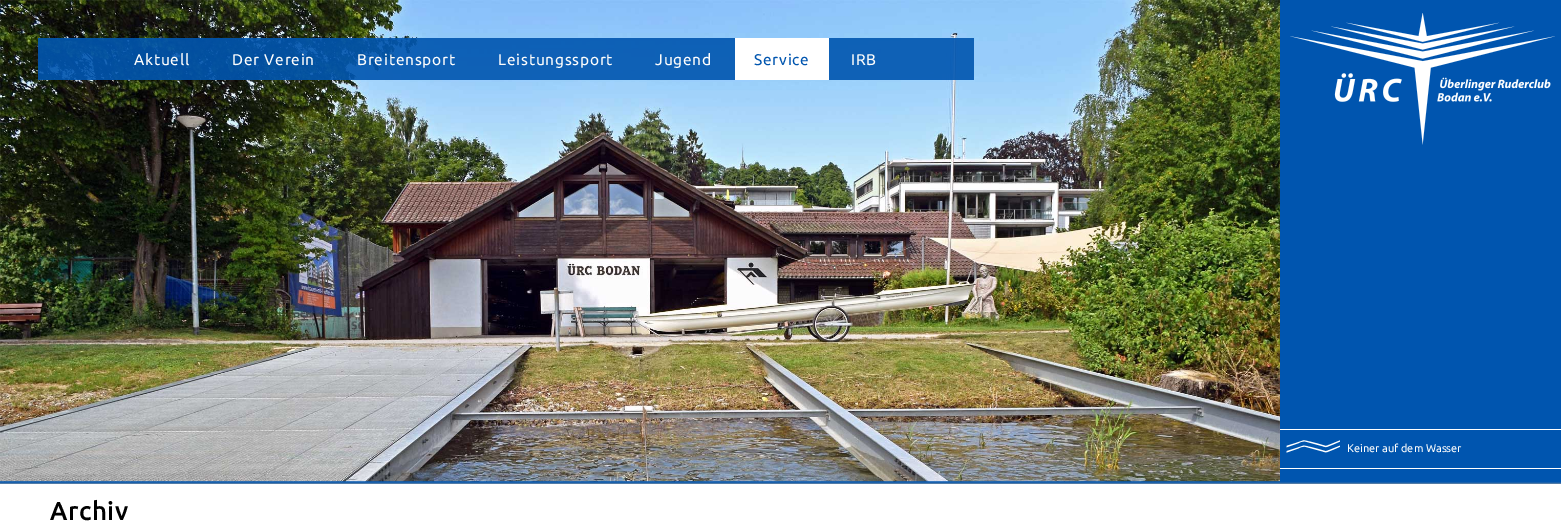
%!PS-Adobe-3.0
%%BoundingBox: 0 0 1561 526
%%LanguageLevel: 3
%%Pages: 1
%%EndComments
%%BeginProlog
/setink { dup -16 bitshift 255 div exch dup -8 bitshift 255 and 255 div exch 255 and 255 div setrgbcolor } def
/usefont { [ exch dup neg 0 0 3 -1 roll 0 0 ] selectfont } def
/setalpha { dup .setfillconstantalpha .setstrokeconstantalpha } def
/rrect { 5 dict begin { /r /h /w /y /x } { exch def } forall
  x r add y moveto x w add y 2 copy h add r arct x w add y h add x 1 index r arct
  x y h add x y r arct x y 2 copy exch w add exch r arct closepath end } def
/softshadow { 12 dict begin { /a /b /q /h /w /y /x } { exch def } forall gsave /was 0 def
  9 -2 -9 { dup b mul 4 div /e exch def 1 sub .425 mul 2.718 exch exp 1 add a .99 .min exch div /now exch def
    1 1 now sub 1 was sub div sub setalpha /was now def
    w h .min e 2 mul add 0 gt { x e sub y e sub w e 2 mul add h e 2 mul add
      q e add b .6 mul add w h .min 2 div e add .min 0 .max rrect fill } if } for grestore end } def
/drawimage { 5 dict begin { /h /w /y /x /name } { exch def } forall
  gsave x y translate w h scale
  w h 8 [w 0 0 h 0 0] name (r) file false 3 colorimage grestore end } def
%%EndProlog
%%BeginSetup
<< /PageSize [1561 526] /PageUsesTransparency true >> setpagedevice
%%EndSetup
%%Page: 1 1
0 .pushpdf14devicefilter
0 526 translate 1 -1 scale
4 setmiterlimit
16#0055AF setink
0 0 1561 526 rectfill
(img1.raw) 0 0 1280 482 drawimage
(img2.raw) 1290 13 265 132 drawimage
0.9 setalpha
38 38 936 42 rectfill
/Ubuntu-Regular 15.5 usefont
1 setalpha
16#FCFCFC setink
134 65 moveto 0.75 0 (Aktuell) ashow
232 65 moveto 0.75 0 (Der Verein) ashow
357 65 moveto 0.75 0 (Breitensport) ashow
498 65 moveto 0.75 0 (Leistungssport) ashow
655 65 moveto 0.75 0 (Jugend) ashow
16#FFFFFF setink
735 38 94 42 rectfill
16#0055AF setink
754 65 moveto 0.75 0 (Service) ashow
16#FCFCFC setink
851 65 moveto 0.75 0 (IRB) ashow
16#FFFFFF setink
1280 429 281 1 rectfill
1280 468 281 1 rectfill
(img3.raw) 1286 440 54 13 drawimage
/Ubuntu-Regular 11 usefont
16#FCFCFC setink
1347 452 moveto (Keiner auf dem Wasser) show
16#9C9C9C setink
-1 483 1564 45 0 0.5 0.6 softshadow
16#FFFFFF setink
0 484 1561 42 rectfill
/Ubuntu-Bold 25 usefont
16#000000 setink
50 520 moveto 1.25 0 (Archiv) ashow
.poppdf14devicefilter showpage
%%EOF
